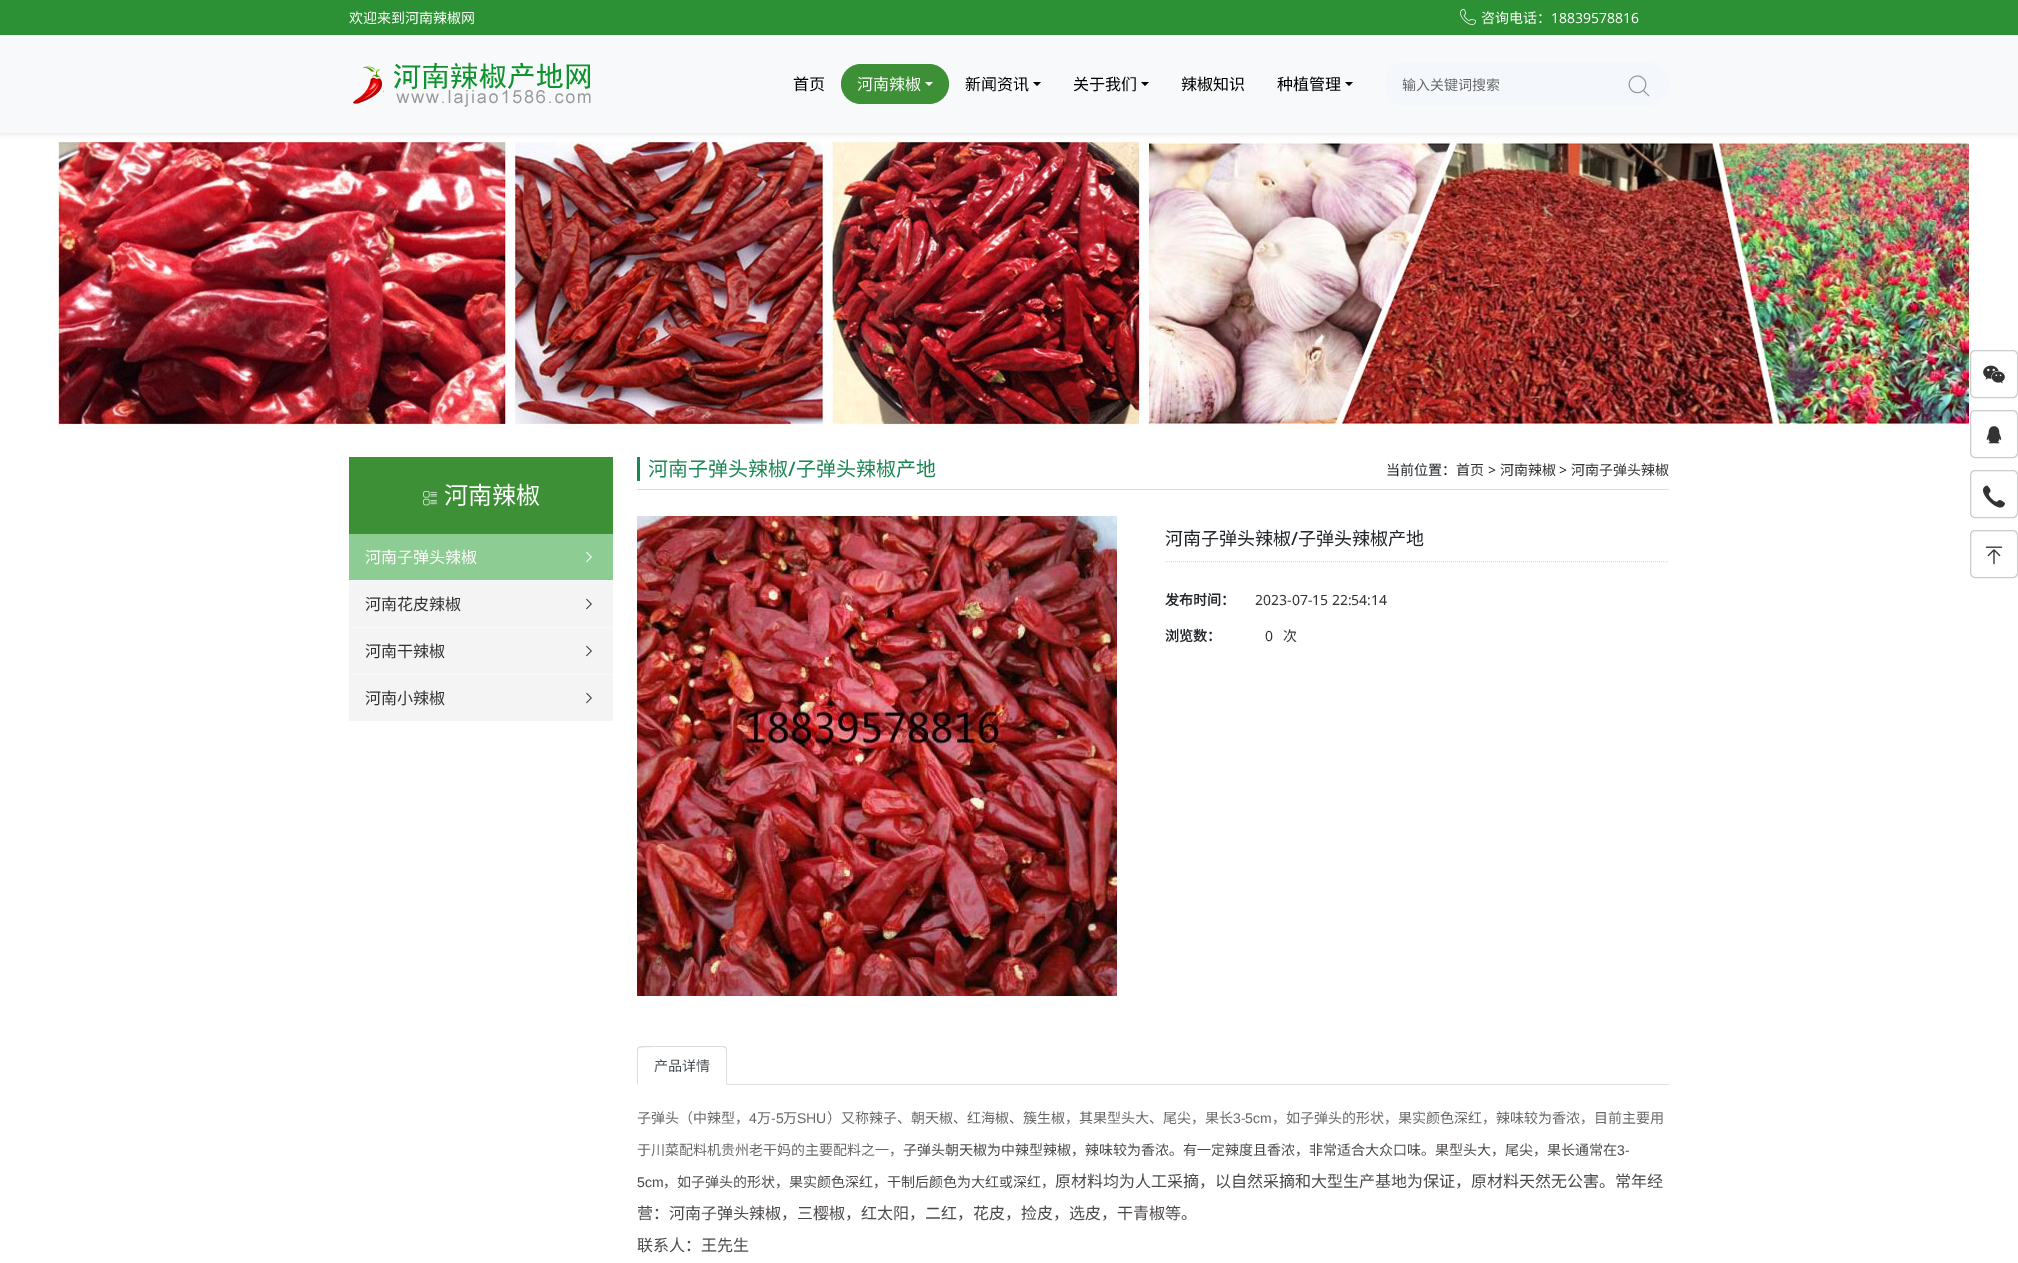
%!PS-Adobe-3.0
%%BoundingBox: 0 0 2018 1263
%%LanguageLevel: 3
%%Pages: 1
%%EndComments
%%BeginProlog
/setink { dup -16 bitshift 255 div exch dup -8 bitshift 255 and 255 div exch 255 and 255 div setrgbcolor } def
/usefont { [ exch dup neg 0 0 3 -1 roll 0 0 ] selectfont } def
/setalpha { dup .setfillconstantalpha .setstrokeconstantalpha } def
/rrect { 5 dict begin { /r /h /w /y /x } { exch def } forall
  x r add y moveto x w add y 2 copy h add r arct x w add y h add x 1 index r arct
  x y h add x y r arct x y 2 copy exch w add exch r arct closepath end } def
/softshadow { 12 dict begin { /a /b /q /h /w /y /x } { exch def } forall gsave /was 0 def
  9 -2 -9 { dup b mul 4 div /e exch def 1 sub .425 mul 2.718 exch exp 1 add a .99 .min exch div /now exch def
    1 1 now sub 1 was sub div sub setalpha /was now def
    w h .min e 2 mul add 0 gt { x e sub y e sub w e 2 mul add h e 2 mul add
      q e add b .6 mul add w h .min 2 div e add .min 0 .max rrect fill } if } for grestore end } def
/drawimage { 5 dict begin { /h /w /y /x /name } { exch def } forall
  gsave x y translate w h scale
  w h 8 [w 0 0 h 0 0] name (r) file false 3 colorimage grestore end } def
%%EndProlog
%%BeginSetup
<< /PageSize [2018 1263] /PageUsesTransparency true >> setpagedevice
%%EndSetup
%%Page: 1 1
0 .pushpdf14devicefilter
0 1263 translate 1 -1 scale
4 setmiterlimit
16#FFFFFF setink
0 0 2018 1263 rectfill
16#2C9134 setink
0 0 2018 35 rectfill
/NotoSansCJKSC-Regular 14 usefont
16#FFFFFF setink
349 23 moveto (欢迎来到河南辣椒网) show
(img1.raw) 1460 9 16 16 drawimage
1481 23 moveto (咨询电话：) show
/NotoSans-Regular 14 usefont
1551 23 moveto (18839578816) show
(img4.raw) 57 141 1912 288 drawimage
16#000000 setink
0 37 2018 98 0 2 0.07 softshadow
16#F8F9FA setink
0 35 2018 98 rectfill
(img2.raw) 353 62 238 45 drawimage
/NotoSansCJKSC-Regular 16 usefont
16#000000 setink
793 90 moveto (首页) show
16#3D9035 setink
841 64 108 40 20 rrect fill
16#FFFFFF setink
857 90 moveto (河南辣椒) show
925 82 moveto 933 82 lineto 929 86 lineto closepath fill
16#000000 setink
965 90 moveto (新闻资讯) show
1033 82 moveto 1041 82 lineto 1037 86 lineto closepath fill
1073 90 moveto (关于我们) show
1141 82 moveto 1149 82 lineto 1145 86 lineto closepath fill
1181 90 moveto (辣椒知识) show
1277 90 moveto (种植管理) show
1345 82 moveto 1353 82 lineto 1349 86 lineto closepath fill
16#F4F7FB setink
1385 62 284 44 22 rrect fill
/NotoSansCJKSC-Regular 14 usefont
16#666666 setink
1402 90 moveto (输入关键词搜索) show
(img3.raw) 1628 75 22 22 drawimage
16#3D9035 setink
349 457 264 77 rectfill
(img5.raw) 423 491 14 15 drawimage
/NotoSansCJKSC-Regular 24 usefont
16#FFFFFF setink
444 504 moveto (河南辣椒) show
16#F8F9FA setink
349 580 264 95 rectfill
16#8DCC92 setink
349 534 264 46 rectfill
/NotoSansCJKSC-Regular 16 usefont
16#FFFFFF setink
365 563 moveto (河南子弹头辣椒) show
(img6.raw) 586 551 6 12 drawimage
16#F4F4F4 setink
349 581 264 46 rectfill
16#333333 setink
365 610 moveto (河南花皮辣椒) show
(img7.raw) 586 598 6 12 drawimage
16#F4F4F4 setink
349 628 264 46 rectfill
16#333333 setink
365 657 moveto (河南干辣椒) show
(img7.raw) 586 645 6 12 drawimage
16#F4F4F4 setink
349 675 264 46 rectfill
16#333333 setink
365 704 moveto (河南小辣椒) show
(img7.raw) 586 692 6 12 drawimage
16#DDDDDD setink
637 489 1032 1 rectfill
16#198754 setink
637 457 3 24 rectfill
/NotoSansCJKSC-Regular 20 usefont
648 476 moveto (河南子弹头辣椒) show
/NotoSans-Medium 20 usefont
788 476 moveto (/) show
/NotoSansCJKSC-Regular 20 usefont
796 476 moveto (子弹头辣椒产地) show
/NotoSansCJKSC-Regular 14 usefont
16#212529 setink
1386 475 moveto (当前位置：) show
16#333333 setink
1456 475 moveto (首页) show
/NotoSans-Regular 14 usefont
16#212529 setink
1488 475 moveto (>) show
/NotoSansCJKSC-Regular 14 usefont
16#333333 setink
1500 475 moveto (河南辣椒) show
/NotoSans-Regular 14 usefont
16#212529 setink
1559 475 moveto (>) show
/NotoSansCJKSC-Regular 14 usefont
16#333333 setink
1571 475 moveto (河南子弹头辣椒) show
(img8.raw) 637 516 480 480 drawimage
16#DDDDDD setink
[1 1] 0 setdash
1165 561.5 moveto 1669 561.5 lineto stroke
/NotoSansCJKSC-Regular 18 usefont
16#212529 setink
1165 545 moveto (河南子弹头辣椒) show
/NotoSans-Medium 18 usefont
1291 545 moveto (/) show
/NotoSansCJKSC-Regular 18 usefont
1298 545 moveto (子弹头辣椒产地) show
/NotoSansCJKSC-Bold 14 usefont
1165 605 moveto (发布时间：) show
/NotoSans-Regular 14 usefont
16#333333 setink
1255 605 moveto (2023-07-15 22:54:14) show
/NotoSansCJKSC-Bold 14 usefont
16#212529 setink
1165 641 moveto (浏览数：) show
/NotoSans-Regular 14 usefont
16#333333 setink
1265 641 moveto (0) show
/NotoSansCJKSC-Regular 14 usefont
1283 641 moveto (次) show
16#DDDDDD setink
727 1084 942 1 rectfill
641 1046 moveto 638 1047 lineto 639 1048 lineto 641 1046 702 1047 709 1047 curveto 723 1047 lineto 725 1048 lineto 726 1047 lineto 723 1046 lineto closepath fill
727 1085 moveto 727 1050 lineto 727 1049 726.5 1048 726 1047 curveto 725 1048 lineto 726 1048 726 1049 726 1050 curveto 726 1084 lineto closepath fill
16#FFFFFF setink
727 1085 moveto 726 1084 lineto 638 1084 lineto 637 1085 lineto closepath fill
16#DDDDDD setink
637 1085 moveto 638 1084 lineto 638 1050 lineto 638 1049 638 1048 639 1048 curveto 638 1047 lineto 637.5 1048 637 1049 637 1050 curveto closepath fill
16#495057 setink
654 1071 moveto (产品详情) show
16#666666 setink
637 1123 moveto (子弹头（中辣型，) show
/LiberationSans-Regular 14 usefont
749 1123 moveto (4) show
/NotoSansCJKSC-Regular 14 usefont
757 1123 moveto (万) show
/LiberationSans-Regular 14 usefont
771 1123 moveto (-5) show
/NotoSansCJKSC-Regular 14 usefont
783 1123 moveto (万) show
/LiberationSans-Regular 14 usefont
797 1123 moveto (SHU) show
/NotoSansCJKSC-Regular 14 usefont
827 1123 moveto (）又称辣子、朝天椒、红海椒、簇生椒，其果型头大、尾尖，果长) show
/LiberationSans-Regular 14 usefont
1233 1123 moveto (3-5cm) show
/NotoSansCJKSC-Regular 14 usefont
1272 1123 moveto (，如子弹头的形状，果实颜色深红，辣味较为香浓，目前主要用) show
637 1155 moveto (于川菜配料机贵州老干妈的主要配料之一，) show
16#4D4948 setink
903 1155 moveto (子弹头朝天椒为中辣型辣椒，辣味较为香浓。有一定辣度且香浓，非常适合大众口味。果型头大，尾尖，果长通常在) show
/LiberationSans-Regular 14 usefont
1617 1155 moveto (3-) show
637 1187 moveto (5cm) show
/NotoSansCJKSC-Regular 14 usefont
663 1187 moveto (，如子弹头的形状，果实颜色深红，干制后颜色为大红或深红，) show
/NotoSansCJKSC-Regular 16 usefont
[
    [(原材料均为人工采摘，以自然采摘和大型生产基地为保证，原材料天然无公害。常年经) 1055 1187]
    [(营：河南子弹头辣椒，三樱椒，红太阳，二红，花皮，捡皮，选皮，干青椒等。) 637 1219]
    [(联系人：王先生) 637 1251]
] { aload pop moveto show } forall
16#CCCCCC setink
[] 0 setdash
1970.5 350.5 47 47 4.5 rrect stroke
(img9.raw) 1983 365 22 19 drawimage
1970.5 410.5 47 47 4.5 rrect stroke
(img10.raw) 1986 426 16 18 drawimage
1970.5 470.5 47 47 4.5 rrect stroke
(img11.raw) 1983 485 22 23 drawimage
1970.5 530.5 47 47 4.5 rrect stroke
(img12.raw) 1985 546 18 19 drawimage
.poppdf14devicefilter showpage
%%EOF
